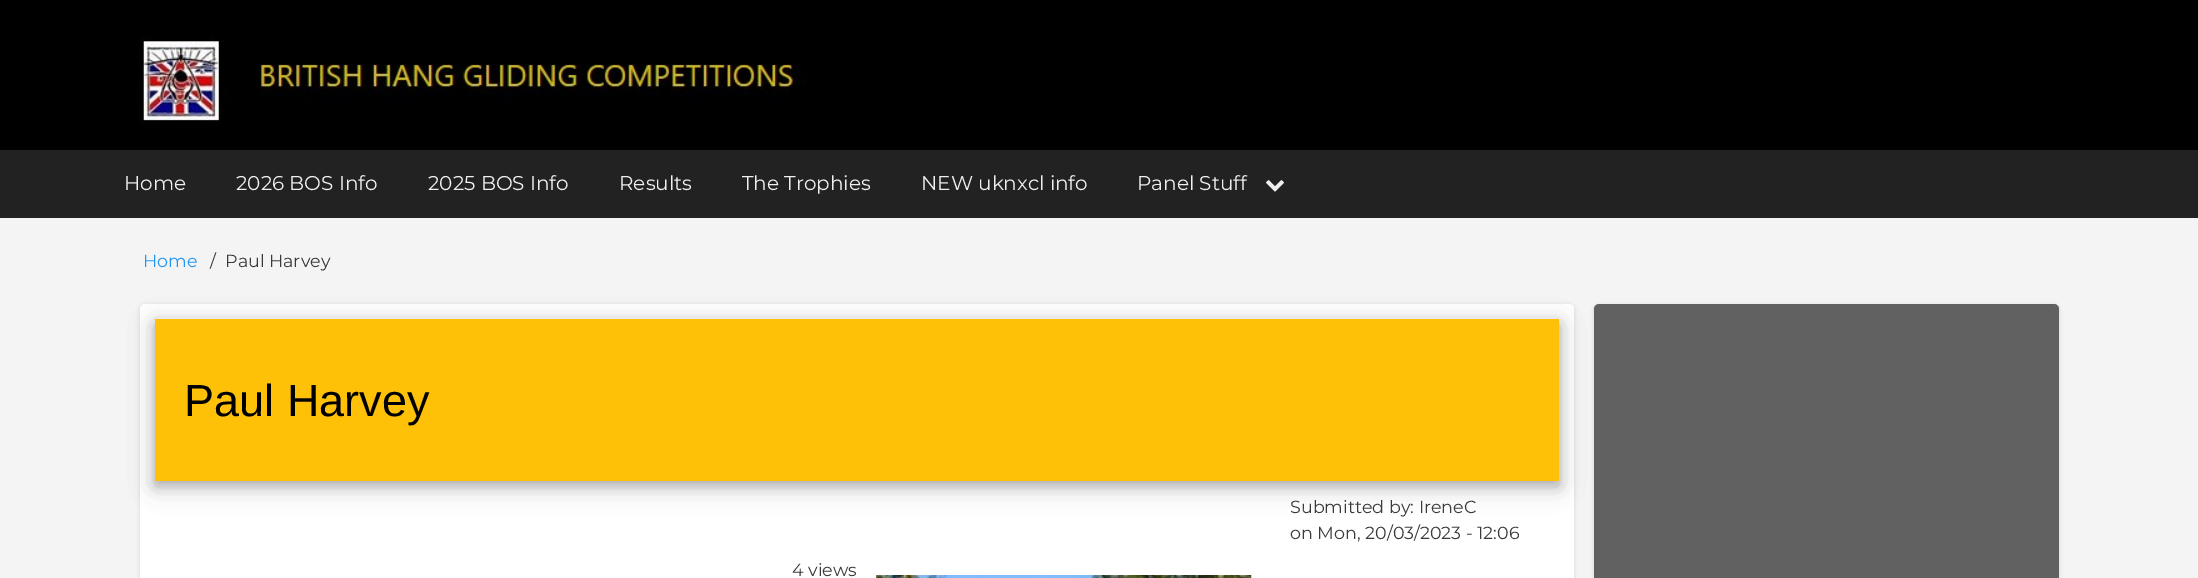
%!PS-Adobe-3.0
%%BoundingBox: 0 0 2198 578
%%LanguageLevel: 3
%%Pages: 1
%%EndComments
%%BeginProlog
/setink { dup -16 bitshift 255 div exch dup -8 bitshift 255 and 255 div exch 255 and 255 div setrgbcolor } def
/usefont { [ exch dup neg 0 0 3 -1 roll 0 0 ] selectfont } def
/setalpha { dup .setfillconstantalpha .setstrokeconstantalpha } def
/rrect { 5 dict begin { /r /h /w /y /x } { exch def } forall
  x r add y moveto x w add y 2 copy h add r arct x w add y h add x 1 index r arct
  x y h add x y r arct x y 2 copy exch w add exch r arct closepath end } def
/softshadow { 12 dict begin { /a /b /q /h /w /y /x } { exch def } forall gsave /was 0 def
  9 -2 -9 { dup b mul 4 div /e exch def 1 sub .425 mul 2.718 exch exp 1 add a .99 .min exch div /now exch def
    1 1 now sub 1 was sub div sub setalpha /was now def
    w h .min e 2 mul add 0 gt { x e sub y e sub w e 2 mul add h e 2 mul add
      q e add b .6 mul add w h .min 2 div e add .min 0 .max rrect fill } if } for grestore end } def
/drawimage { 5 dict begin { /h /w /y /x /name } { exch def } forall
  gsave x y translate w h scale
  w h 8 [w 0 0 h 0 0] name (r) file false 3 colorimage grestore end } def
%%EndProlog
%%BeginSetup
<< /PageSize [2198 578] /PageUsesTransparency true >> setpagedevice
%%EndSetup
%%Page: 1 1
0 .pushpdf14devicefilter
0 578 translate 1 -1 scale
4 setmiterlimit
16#000000 setink
0 0 2198 578 rectfill
(img1.raw) 134 36 674 89 drawimage
16#222222 setink
0 150 2198 68 rectfill
/Montserrat-Thin 20 usefont
16#EFEFEF setink
[
    [(Home) 124 190]
    [(2026 BOS Info) 236 190]
    [(2025 BOS Info) 428 190]
    [(Results) 619 190]
    [(The Trophies) 742 190]
    [(NEW uknxcl info) 921 190]
    [(Panel Stuff) 1137 190]
] { aload pop moveto show } forall
(img2.raw) 1266 180 18 12 drawimage
16#F4F4F4 setink
0 218 2198 360 rectfill
/Montserrat-Thin 17.5 usefont
16#2196F3 setink
143 267 moveto (Home) show
16#3A3A3A setink
210 267 moveto (/) show
225 267 moveto (Paul Harvey) show
16#000000 setink
140 305 1434 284 5 2 0.12 softshadow
16#FFFFFF setink
140 304 1434 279 5 rrect fill
16#000000 setink
155 324 1404 162 0 12.5 0.19 softshadow
155 324 1404 162 0 6 0.2 softshadow
16#FFC107 setink
155 319 1404 162 rectfill
/LiberationSans-Regular 45 usefont
16#000000 setink
184 416 moveto (Paul Harvey) show
/Montserrat-Thin 17.5 usefont
16#3A3A3A setink
[
    [(Submitted by: IreneC) 1290 513]
    [(on Mon, 20/03/2023 - 12:06) 1290 539]
    [(4 views) 792 576]
] { aload pop moveto show } forall
(img3.raw) 876 575 376 3 drawimage
16#000000 setink
1594 305 465 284 5 2 0.12 softshadow
16#616161 setink
1594 304 465 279 5 rrect fill
.poppdf14devicefilter showpage
%%EOF
